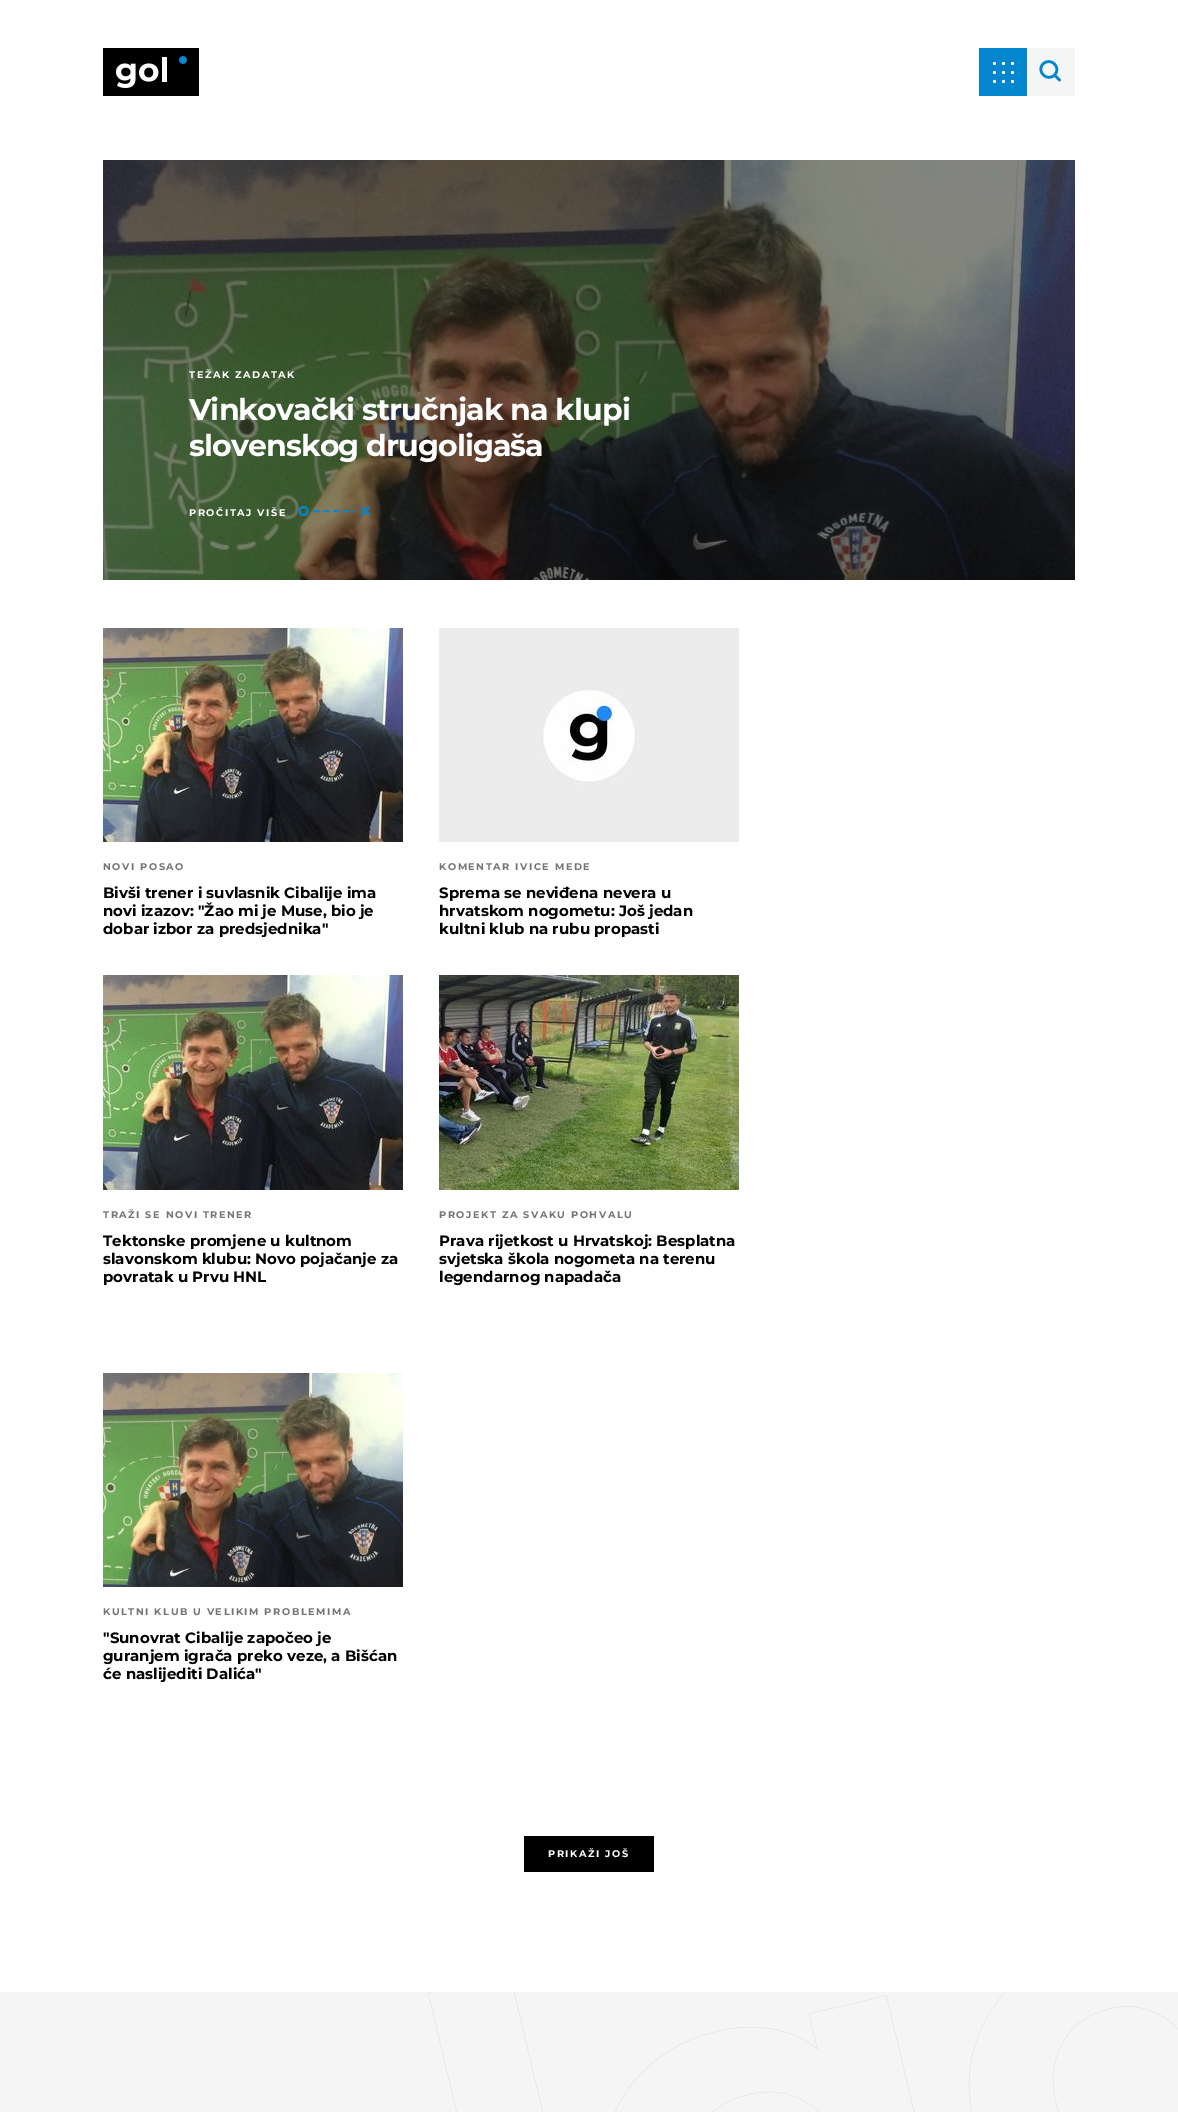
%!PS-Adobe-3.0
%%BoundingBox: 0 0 1178 2112
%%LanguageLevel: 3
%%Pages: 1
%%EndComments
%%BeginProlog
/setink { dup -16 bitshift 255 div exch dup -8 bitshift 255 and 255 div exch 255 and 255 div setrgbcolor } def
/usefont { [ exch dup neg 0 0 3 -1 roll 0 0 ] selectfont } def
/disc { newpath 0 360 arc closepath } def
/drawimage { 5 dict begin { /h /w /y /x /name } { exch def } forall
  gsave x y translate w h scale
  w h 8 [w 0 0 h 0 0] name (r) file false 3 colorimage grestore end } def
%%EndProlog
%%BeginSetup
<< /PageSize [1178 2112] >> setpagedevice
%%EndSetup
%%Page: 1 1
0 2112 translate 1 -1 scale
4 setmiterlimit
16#FFFFFF setink
0 0 1178 2112 rectfill
(img1.raw) 103 48 96 48 drawimage
16#0486CF setink
979 48 48 48 rectfill
16#FFFFFF setink
994.5 63.5 1.5 disc fill
1003.5 63.5 1.5 disc fill
1012.5 63.5 1.5 disc fill
994.5 72.5 1.5 disc fill
1003.5 72.5 1.5 disc fill
1012.5 72.5 1.5 disc fill
994.5 81.5 1.5 disc fill
1003.5 81.5 1.5 disc fill
1012.5 81.5 1.5 disc fill
16#F5F5F5 setink
1027 48 48 48 rectfill
16#0486CF setink
2.6 setlinewidth
1 setlinecap
1054.5 75 moveto 1062 67.5 1050.5 56.5 1043 64 curveto 1036 71 1047 82.5 1054.5 75 curveto closepath 1054.5 75 moveto 1059.5 80 lineto stroke
(img2.raw) 103 160 972 420 drawimage
/Montserrat-Bold 9.75 usefont
16#FFFFFF setink
189 378 moveto 1.55 0 (TEŽAK ZADATAK) ashow
/Montserrat-Bold 30 usefont
189 420 moveto -0.9 0 (Vinkovački stručnjak na klupi) ashow
189 456 moveto -0.9 0 (slovenskog drugoligaša) ashow
/Montserrat-Bold 9.75 usefont
189 516 moveto 1.55 0 (PROČITAJ VIŠE) ashow
16#0486CF setink
2 setlinewidth
0 setlinecap
303.5 511 4 disc stroke
1 setlinecap
[4 6] 0 setdash
314.5 511 moveto 354.5 511 lineto stroke
0 setlinecap
[] 0 setdash
369.5 507 moveto 361.5 515 lineto 361.5 507 moveto 369.5 515 lineto stroke
(img3.raw) 103 628 300 214 drawimage
16#757575 setink
103 870 moveto 1.55 0 (NOVI POSAO) ashow
/Montserrat-Bold 15 usefont
16#000000 setink
[
    [(Bivši trener i suvlasnik Cibalije ima) 103 898]
    [(novi izazov: "Žao mi je Muse, bio je) 103 916]
    [(dobar izbor za predsjednika") 103 934]
] { aload pop moveto show } forall
(img4.raw) 439 628 300 214 drawimage
/Montserrat-Bold 9.75 usefont
16#757575 setink
439 870 moveto 1.55 0 (KOMENTAR IVICE MEDE) ashow
/Montserrat-Bold 15 usefont
16#000000 setink
[
    [(Sprema se neviđena nevera u) 439 898]
    [(hrvatskom nogometu: Još jedan) 439 916]
    [(kultni klub na rubu propasti) 439 934]
] { aload pop moveto show } forall
(img5.raw) 103 975 300 215 drawimage
/Montserrat-Bold 9.75 usefont
16#757575 setink
103 1218 moveto 1.55 0 (TRAŽI SE NOVI TRENER) ashow
/Montserrat-Bold 15 usefont
16#000000 setink
[
    [(Tektonske promjene u kultnom) 103 1246]
    [(slavonskom klubu: Novo pojačanje za) 103 1264]
    [(povratak u Prvu HNL) 103 1282]
] { aload pop moveto show } forall
(img6.raw) 439 975 300 215 drawimage
/Montserrat-Bold 9.75 usefont
16#757575 setink
439 1218 moveto 1.55 0 (PROJEKT ZA SVAKU POHVALU) ashow
/Montserrat-Bold 15 usefont
16#000000 setink
[
    [(Prava rijetkost u Hrvatskoj: Besplatna) 439 1246]
    [(svjetska škola nogometa na terenu) 439 1264]
    [(legendarnog napadača) 439 1282]
] { aload pop moveto show } forall
(img7.raw) 103 1373 300 214 drawimage
/Montserrat-Bold 9.75 usefont
16#757575 setink
103 1615 moveto 1.55 0 (KULTNI KLUB U VELIKIM PROBLEMIMA) ashow
/Montserrat-Bold 15 usefont
16#000000 setink
[
    [("Sunovrat Cibalije započeo je) 103 1643]
    [(guranjem igrača preko veze, a Bišćan) 103 1661]
    [(će naslijediti Dalića") 103 1679]
] { aload pop moveto show } forall
524 1836 130 36 rectfill
/Montserrat-Bold 9.75 usefont
16#FFFFFF setink
548 1857 moveto 1.55 0 (PRIKAŽI JOŠ) ashow
16#F5F5F5 setink
0 1992 1178 120 rectfill
(img8.raw) 428 1992 750 120 drawimage
showpage
%%EOF
